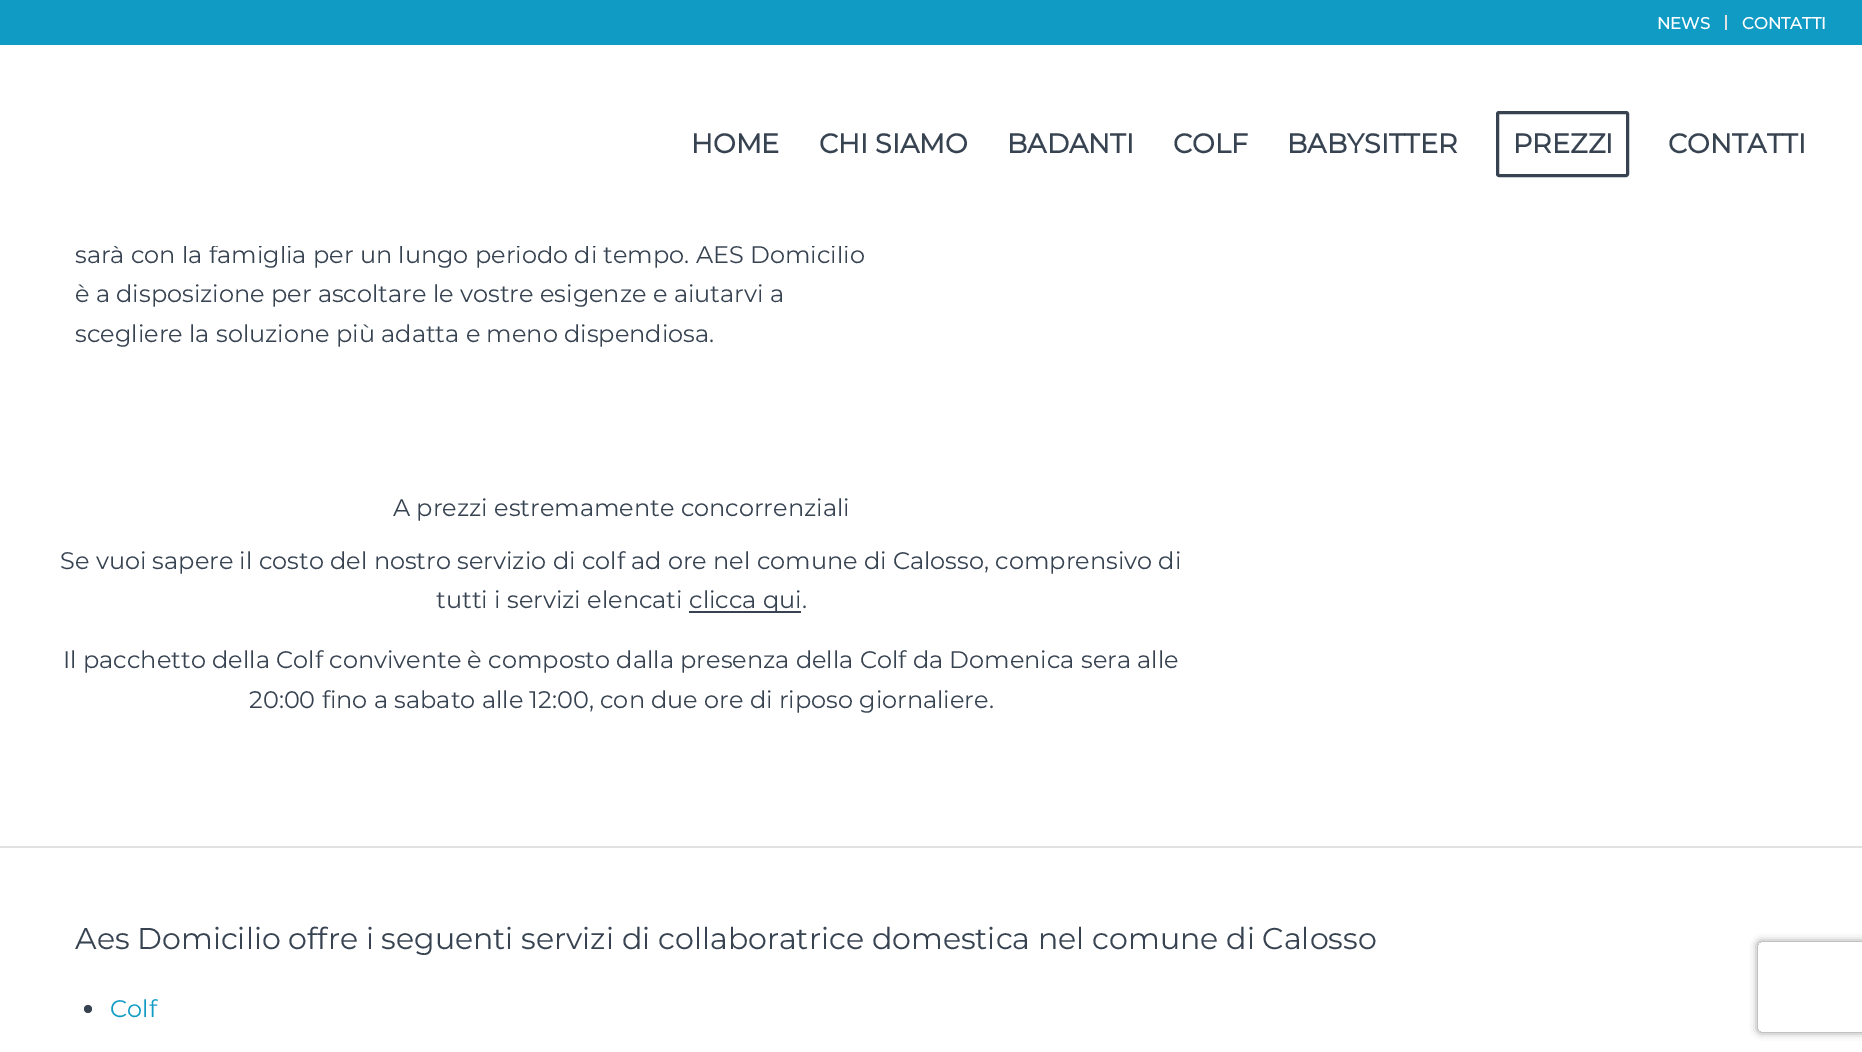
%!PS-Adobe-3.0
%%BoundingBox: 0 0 1862 1052
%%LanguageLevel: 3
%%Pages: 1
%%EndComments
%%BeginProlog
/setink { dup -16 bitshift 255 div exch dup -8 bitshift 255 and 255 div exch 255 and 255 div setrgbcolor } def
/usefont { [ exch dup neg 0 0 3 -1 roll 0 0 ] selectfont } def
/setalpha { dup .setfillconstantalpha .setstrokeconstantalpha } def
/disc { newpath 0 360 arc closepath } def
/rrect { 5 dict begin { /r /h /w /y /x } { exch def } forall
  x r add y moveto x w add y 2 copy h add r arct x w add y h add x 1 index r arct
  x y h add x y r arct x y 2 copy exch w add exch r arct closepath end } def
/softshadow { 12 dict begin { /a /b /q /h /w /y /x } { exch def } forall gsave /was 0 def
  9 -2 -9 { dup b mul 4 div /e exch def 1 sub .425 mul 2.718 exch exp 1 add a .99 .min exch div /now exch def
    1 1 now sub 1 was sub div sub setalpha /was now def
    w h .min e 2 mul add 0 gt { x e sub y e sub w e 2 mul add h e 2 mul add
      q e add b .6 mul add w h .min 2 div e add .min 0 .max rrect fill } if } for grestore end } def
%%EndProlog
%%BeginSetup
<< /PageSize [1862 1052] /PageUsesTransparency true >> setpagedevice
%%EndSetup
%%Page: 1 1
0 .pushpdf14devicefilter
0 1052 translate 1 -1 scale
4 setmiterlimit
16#FFFFFF setink
0 0 1862 1052 rectfill
16#109BC5 setink
0 0 1862 45 rectfill
16#E1E1E1 setink
1725 15 2 15 rectfill
/Montserrat-Bold 16.5 usefont
16#FFFFFF setink
1657 29 moveto (NEWS) show
1742 29 moveto (CONTATTI) show
/Montserrat-Bold 27 usefont
16#384352 setink
[
    [(HOME) 691 153]
    [(CHI SIAMO) 819 153]
    [(BADANTI) 1007 153]
    [(COLF) 1173 153]
    [(BABYSITTER) 1287 153]
] { aload pop moveto show } forall
3 setlinewidth
1497.5 112.5 130 63 1.5 rrect stroke
1513 153 moveto (PREZZI) show
1668 153 moveto (CONTATTI) show
/Montserrat-Thin 24 usefont
75 263 moveto (sarà con la famiglia per un lungo periodo di tempo. AES Domicilio) show
16#FFFFFF setink
113 245 735 1 rectfill
16#384352 setink
[
    [(è a disposizione per ascoltare le vostre esigenze e aiutarvi a) 75 302]
    [(scegliere la soluzione più adatta e meno dispendiosa.) 75 342]
    [(A prezzi estremamente concorrenziali) 393 516]
    [(Se vuoi sapere il costo del nostro servizio di colf ad ore nel comune di Calosso, comprensivo di) 60 569]
    [(tutti i servizi elencati) 436 608]
] { aload pop moveto show } forall
689 611 112 2 rectfill
[
    [(clicca qui.) 689 608]
    [(Il pacchetto della Colf convivente è composto dalla presenza della Colf da Domenica sera alle) 63 668]
    [(20:00 fino a sabato alle 12:00, con due ore di riposo giornaliere.) 249 708]
] { aload pop moveto show } forall
16#E1E1E1 setink
0 846 1862 2 rectfill
/Montserrat-Thin 30 usefont
16#384352 setink
75 949 moveto (Aes Domicilio offre i seguenti servizi di collaboratrice domestica nel comune di Calosso) show
88 1009 4 disc fill
/Montserrat-Thin 24 usefont
16#109BC5 setink
110 1017 moveto (Colf) show
gsave
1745 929 moveto 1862 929 lineto 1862 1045 lineto 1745 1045 lineto closepath 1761 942 moveto 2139 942 lineto 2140.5 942 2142 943.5 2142 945 curveto 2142 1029 lineto 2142 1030.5 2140.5 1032 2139 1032 curveto 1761 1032 lineto 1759.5 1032 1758 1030.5 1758 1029 curveto 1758 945 lineto 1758 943.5 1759.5 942 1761 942 curveto closepath eoclip newpath
16#808080 setink
1758 942 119 90 3 4 1 softshadow
grestore
.poppdf14devicefilter showpage
%%EOF
